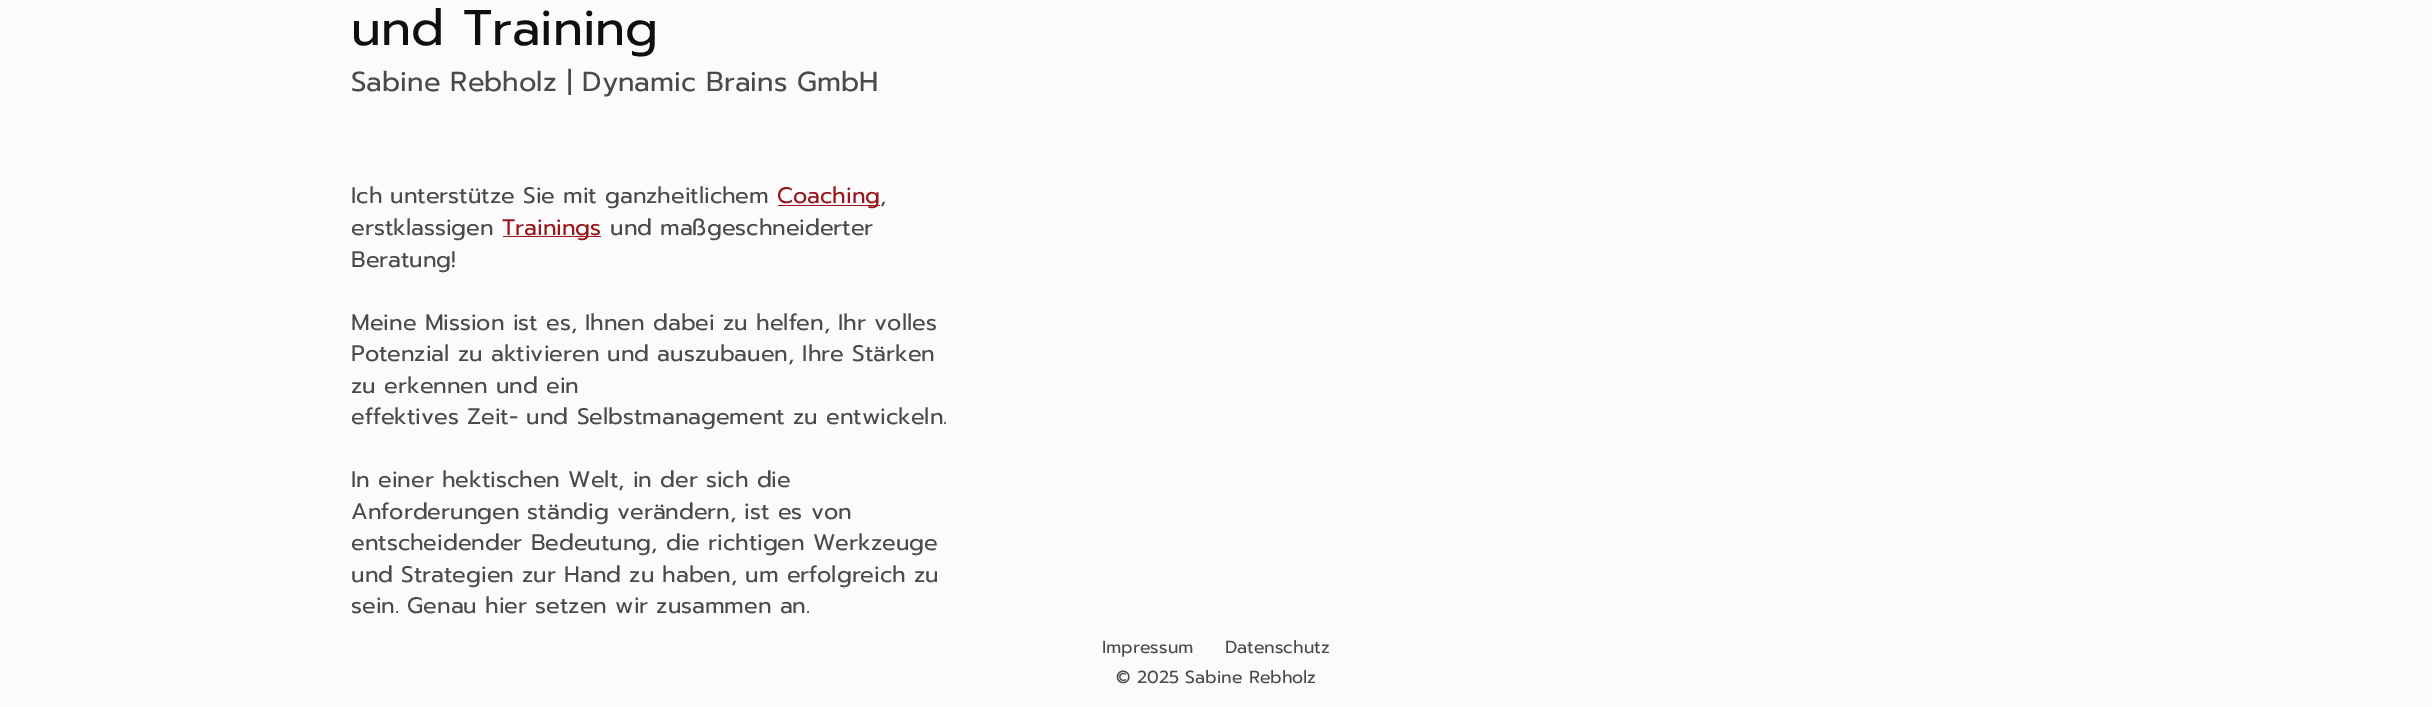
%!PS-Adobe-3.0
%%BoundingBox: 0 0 2432 707
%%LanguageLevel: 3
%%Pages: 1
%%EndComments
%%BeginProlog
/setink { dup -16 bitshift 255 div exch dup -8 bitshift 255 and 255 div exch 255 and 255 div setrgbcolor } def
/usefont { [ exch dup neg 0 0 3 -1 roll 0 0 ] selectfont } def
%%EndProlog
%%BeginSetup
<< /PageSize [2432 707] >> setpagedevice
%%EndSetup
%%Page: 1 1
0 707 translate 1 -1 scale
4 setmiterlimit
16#FBFBFB setink
0 0 2432 707 rectfill
/Prompt-Regular 50 usefont
16#0F0F0F setink
351 45 moveto (und Training) show
/Prompt-Regular 27.5 usefont
16#4A4A4A setink
351 91 moveto (Sabine Rebholz | Dynamic Brains GmbH) show
/Prompt-Regular 22.5 usefont
351 203 moveto (Ich unterstütze Sie mit ganzheitlichem) show
16#9A141B setink
778 205 102 1 rectfill
777 203 moveto (Coaching) show
16#4A4A4A setink
880 203 moveto (,) show
351 235 moveto (erstklassigen) show
16#9A141B setink
503 236 98 1 rectfill
502 235 moveto (Trainings) show
16#4A4A4A setink
[
    [(und maßgeschneiderter) 610 235]
    [(Beratung!) 351 267]
    [(Meine Mission ist es, Ihnen dabei zu helfen, Ihr volles) 351 330]
    [(Potenzial zu aktivieren und auszubauen, Ihre Stärken) 351 361]
    [(zu erkennen und ein) 351 393]
    [(effektives Zeit- und Selbstmanagement zu entwickeln.) 351 424]
    [(In einer hektischen Welt, in der sich die) 351 487]
    [(Anforderungen ständig verändern, ist es von) 351 519]
    [(entscheidender Bedeutung, die richtigen Werkzeuge) 351 550]
    [(und Strategien zur Hand zu haben, um erfolgreich zu) 351 582]
    [(sein. Genau hier setzen wir zusammen an.) 351 613]
] { aload pop moveto show } forall
/Prompt-Regular 17.5 usefont
[
    [(Impressum) 1102 653]
    [(Datenschutz) 1225 653]
    [(© 2025 Sabine Rebholz) 1116 683]
] { aload pop moveto show } forall
showpage
%%EOF
